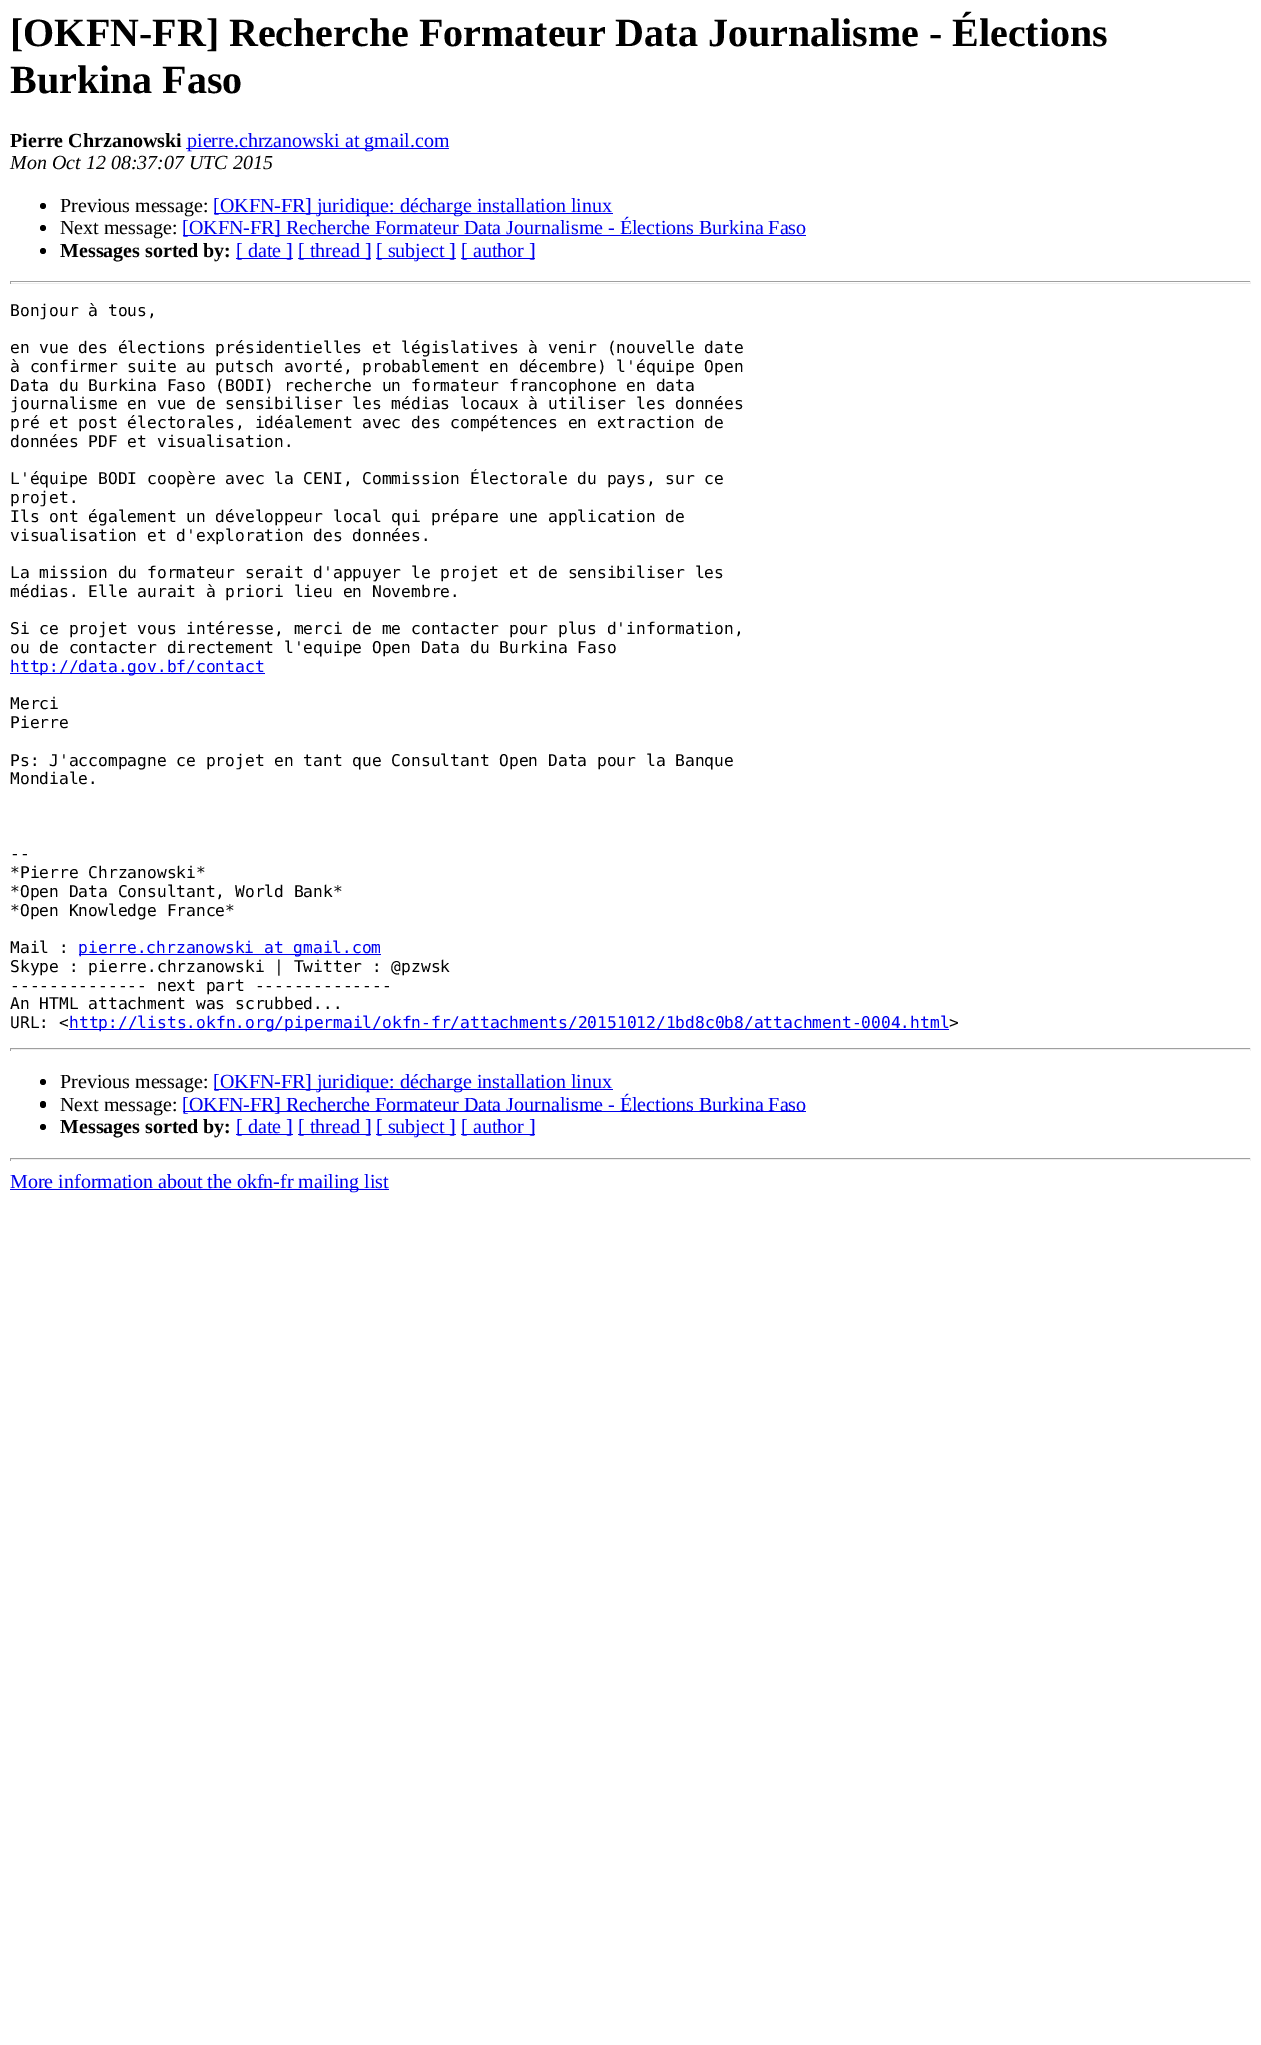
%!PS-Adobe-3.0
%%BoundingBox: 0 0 1261 2045
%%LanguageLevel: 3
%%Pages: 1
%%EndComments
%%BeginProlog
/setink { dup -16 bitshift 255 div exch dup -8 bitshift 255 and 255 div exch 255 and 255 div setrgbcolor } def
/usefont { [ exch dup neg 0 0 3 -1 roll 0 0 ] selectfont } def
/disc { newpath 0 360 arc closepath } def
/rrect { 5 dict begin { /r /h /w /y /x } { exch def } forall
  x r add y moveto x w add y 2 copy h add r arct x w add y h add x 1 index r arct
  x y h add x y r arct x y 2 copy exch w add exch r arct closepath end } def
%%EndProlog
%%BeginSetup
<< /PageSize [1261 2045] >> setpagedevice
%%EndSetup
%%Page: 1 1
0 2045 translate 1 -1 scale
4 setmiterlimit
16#FFFFFF setink
0 0 1261 2045 rectfill
/LiberationSerif-Bold 40 usefont
16#000000 setink
10 46 moveto ([OKFN-FR] Recherche Formateur Data Journalisme - Élections) show
10 93 moveto (Burkina Faso) show
/LiberationSerif-Bold 20 usefont
10 147 moveto (Pierre Chrzanowski) show
16#0000EE setink
186 148 263 1 rectfill
/LiberationSerif-Regular 20 usefont
187 147 moveto (pierre.chrzanowski at gmail.com) show
/LiberationSerif-Italic 20 usefont
16#000000 setink
10 169 moveto (Mon Oct 12 08:37:07 UTC 2015) show
43 206 3 disc fill
/LiberationSerif-Regular 20 usefont
60 212 moveto (Previous message:) show
16#0000EE setink
214 213 399 1 rectfill
213 212 moveto ([OKFN-FR] juridique: décharge installation linux) show
16#000000 setink
43 228 3 disc fill
60 234 moveto (Next message:) show
16#0000EE setink
183 235 623 1 rectfill
182 234 moveto ([OKFN-FR] Recherche Formateur Data Journalisme - Élections Burkina Faso) show
16#000000 setink
43 251 3 disc fill
/LiberationSerif-Bold 20 usefont
60 257 moveto (Messages sorted by:) show
16#0000EE setink
236 258 57 1 rectfill
/LiberationSerif-Regular 20 usefont
236 257 moveto ([ date ]) show
298 258 73 1 rectfill
298 257 moveto ([ thread ]) show
376 258 80 1 rectfill
376 257 moveto ([ subject ]) show
461 258 74 1 rectfill
461 257 moveto ([ author ]) show
[
    [10 281 1241 1 16#9F9F9F]
    [1250 281 1 3 16#EEEEEE]
    [10 283 1241 1 16#EEEEEE]
    [10 281 1 3 16#9F9F9F]
] { aload pop setink rectfill } forall
/DejaVuSansMono-Regular 16.25 usefont
16#000000 setink
[
    [(Bonjour à tous,) 10 316]
    [(en vue des élections présidentielles et législatives à venir \(nouvelle date) 10 353]
    [(à confirmer suite au putsch avorté, probablement en décembre\) l'équipe Open) 10 372]
    [(Data du Burkina Faso \(BODI\) recherche un formateur francophone en data) 10 391]
    [(journalisme en vue de sensibiliser les médias locaux à utiliser les données) 10 409]
    [(pré et post électorales, idéalement avec des compétences en extraction de) 10 428]
    [(données PDF et visualisation.) 10 447]
    [(L'équipe BODI coopère avec la CENI, Commission Électorale du pays, sur ce) 10 484]
    [(projet.) 10 503]
    [(Ils ont également un développeur local qui prépare une application de) 10 522]
    [(visualisation et d'exploration des données.) 10 541]
    [(La mission du formateur serait d'appuyer le projet et de sensibiliser les) 10 578]
    [(médias. Elle aurait à priori lieu en Novembre.) 10 597]
    [(Si ce projet vous intéresse, merci de me contacter pour plus d'information,) 10 634]
    [(ou de contacter directement l'equipe Open Data du Burkina Faso) 10 653]
] { aload pop moveto show } forall
16#0000EE setink
10 673 255 1 rectfill
10 672 moveto (http://data.gov.bf/contact) show
16#000000 setink
[
    [(Merci) 10 709]
    [(Pierre) 10 728]
    [(Ps: J'accompagne ce projet en tant que Consultant Open Data pour la Banque) 10 766]
    [(Mondiale.) 10 784]
    [(--) 10 859]
    [(*Pierre Chrzanowski*) 10 878]
    [(*Open Data Consultant, World Bank*) 10 897]
    [(*Open Knowledge France*) 10 916]
    [(Mail :) 10 953]
] { aload pop moveto show } forall
16#0000EE setink
79 954 302 1 rectfill
78 953 moveto (pierre.chrzanowski at gmail.com) show
16#000000 setink
[
    [(Skype : pierre.chrzanowski | Twitter : @pzwsk) 10 972]
    [(-------------- next part --------------) 10 991]
    [(An HTML attachment was scrubbed...) 10 1009]
    [(URL: <) 10 1028]
] { aload pop moveto show } forall
16#0000EE setink
69 1029 880 1 rectfill
69 1028 moveto (http://lists.okfn.org/pipermail/okfn-fr/attachments/20151012/1bd8c0b8/attachment-0004.html) show
16#000000 setink
949 1028 moveto (>) show
[
    [10 1048 1241 1 16#9F9F9F]
    [1250 1048 1 3 16#EEEEEE]
    [10 1049 1241 1 16#EEEEEE]
    [10 1048 1 3 16#9F9F9F]
] { aload pop setink rectfill } forall
16#000000 setink
43 1082 3 disc fill
/LiberationSerif-Regular 20 usefont
60 1088 moveto (Previous message:) show
16#0000EE setink
214 1089 399 1 rectfill
213 1088 moveto ([OKFN-FR] juridique: décharge installation linux) show
16#000000 setink
40 1101 6 7 3 rrect fill
60 1111 moveto (Next message:) show
16#0000EE setink
183 1111 623 1 rectfill
182 1111 moveto ([OKFN-FR] Recherche Formateur Data Journalisme - Élections Burkina Faso) show
16#000000 setink
43 1127 3 disc fill
/LiberationSerif-Bold 20 usefont
60 1133 moveto (Messages sorted by:) show
16#0000EE setink
236 1134 57 1 rectfill
/LiberationSerif-Regular 20 usefont
236 1133 moveto ([ date ]) show
298 1134 73 1 rectfill
298 1133 moveto ([ thread ]) show
376 1134 80 1 rectfill
376 1133 moveto ([ subject ]) show
461 1134 74 1 rectfill
461 1133 moveto ([ author ]) show
[
    [10 1158 1241 1 16#9F9F9F]
    [1250 1158 1 3 16#EEEEEE]
    [10 1159 1241 1 16#EEEEEE]
    [10 1158 1 3 16#9F9F9F]
    [10 1189 379 1 16#0000EE]
] { aload pop setink rectfill } forall
10 1188 moveto (More information about the okfn-fr mailing list) show
showpage
%%EOF
